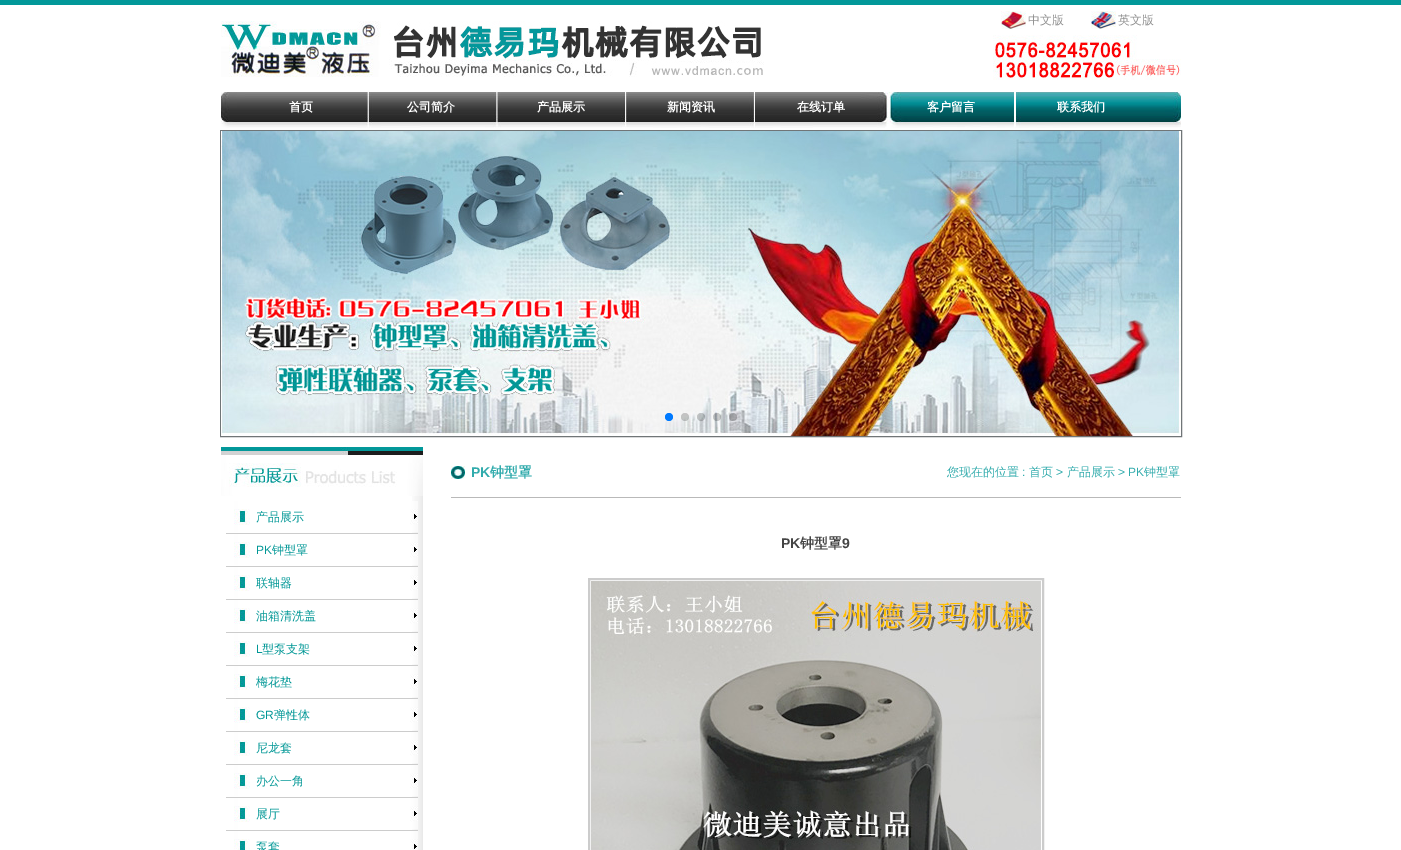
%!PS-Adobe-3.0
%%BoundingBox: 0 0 1401 850
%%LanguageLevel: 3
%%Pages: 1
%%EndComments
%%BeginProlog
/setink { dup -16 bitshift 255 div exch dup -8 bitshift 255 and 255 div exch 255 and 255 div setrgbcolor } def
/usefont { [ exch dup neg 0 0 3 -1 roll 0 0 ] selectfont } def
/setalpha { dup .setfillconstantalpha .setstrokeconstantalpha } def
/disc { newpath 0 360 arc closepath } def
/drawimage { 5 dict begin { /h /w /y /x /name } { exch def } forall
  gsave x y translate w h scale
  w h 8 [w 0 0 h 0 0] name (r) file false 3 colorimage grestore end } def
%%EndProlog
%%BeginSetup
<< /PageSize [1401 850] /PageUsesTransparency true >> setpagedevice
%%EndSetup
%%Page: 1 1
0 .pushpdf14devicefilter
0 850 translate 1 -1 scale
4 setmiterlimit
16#FFFFFF setink
0 0 1401 850 rectfill
16#029899 setink
0 0 1401 5 rectfill
(img1.raw) 1001 11 25 18 drawimage
/WenQuanYiZenHei-Medium 12 usefont
16#939393 setink
1028 24 moveto (中文版) show
(img2.raw) 1091 11 25 18 drawimage
1118 24 moveto (英文版) show
(img3.raw) 993 35 188 45 drawimage
(img4.raw) 221 21 543 56 drawimage
(img5.raw) 221 92 960 36 drawimage
/WenQuanYiZenHei-Bold 12 usefont
16#FFFFFF setink
[
    [(首页) 289 111]
    [(公司简介) 407 111]
    [(产品展示) 537 111]
    [(新闻资讯) 667 111]
    [(在线订单) 797 111]
    [(客户留言) 927 111]
    [(联系我们) 1057 111]
] { aload pop moveto show } forall
16#707577 setink
220.5 130.5 961 306 rectstroke
(img6.raw) 221 131 960 305 drawimage
16#007AFF setink
669 417 4 disc fill
0.2 setalpha
16#000000 setink
685 417 4 disc fill
701 417 4 disc fill
717 417 4 disc fill
733 417 4 disc fill
1 setalpha
(img7.raw) 412 496 11 354 drawimage
(img8.raw) 221 447 202 49 drawimage
(img9.raw) 234 501 184 31 drawimage
16#CCCCCC setink
226 533 192 1 rectfill
/WenQuanYiZenHei-Medium 12 usefont
16#019796 setink
256 521 moveto (产品展示) show
(img9.raw) 234 534 184 31 drawimage
16#CCCCCC setink
226 566 192 1 rectfill
/LiberationSans-Regular 12 usefont
16#019796 setink
256 554 moveto (PK) show
/WenQuanYiZenHei-Medium 12 usefont
272 554 moveto (钟型罩) show
(img9.raw) 234 567 184 31 drawimage
16#CCCCCC setink
226 599 192 1 rectfill
16#019796 setink
256 587 moveto (联轴器) show
(img9.raw) 234 600 184 31 drawimage
16#CCCCCC setink
226 632 192 1 rectfill
16#019796 setink
256 620 moveto (油箱清洗盖) show
(img9.raw) 234 633 184 31 drawimage
16#CCCCCC setink
226 665 192 1 rectfill
/LiberationSans-Regular 12 usefont
16#019796 setink
256 653 moveto (L) show
/WenQuanYiZenHei-Medium 12 usefont
262 653 moveto (型泵支架) show
(img9.raw) 234 666 184 31 drawimage
16#CCCCCC setink
226 698 192 1 rectfill
16#019796 setink
256 686 moveto (梅花垫) show
(img9.raw) 234 699 184 31 drawimage
16#CCCCCC setink
226 731 192 1 rectfill
/LiberationSans-Regular 12 usefont
16#019796 setink
256 719 moveto (GR) show
/WenQuanYiZenHei-Medium 12 usefont
274 719 moveto (弹性体) show
(img9.raw) 234 732 184 31 drawimage
16#CCCCCC setink
226 764 192 1 rectfill
16#019796 setink
256 752 moveto (尼龙套) show
(img9.raw) 234 765 184 31 drawimage
16#CCCCCC setink
226 797 192 1 rectfill
16#019796 setink
256 785 moveto (办公一角) show
(img9.raw) 234 798 184 31 drawimage
16#CCCCCC setink
226 830 192 1 rectfill
16#019796 setink
256 818 moveto (展厅) show
(img10.raw) 234 831 184 19 drawimage
256 851 moveto (泵套) show
(img11.raw) 451 466 14 13 drawimage
16#B9B9B9 setink
451 497 730 1 rectfill
/LiberationSans-Bold 14 usefont
16#31ABAC setink
471 477 moveto (PK) show
/WenQuanYiZenHei-Bold 14 usefont
490 477 moveto (钟型罩) show
/WenQuanYiZenHei-Medium 12 usefont
947 476 moveto (您现在的位置) show
/LiberationSans-Regular 12 usefont
1022 476 moveto (:) show
/WenQuanYiZenHei-Medium 12 usefont
1029 476 moveto (首页) show
/LiberationSans-Regular 12 usefont
1056 476 moveto (>) show
/WenQuanYiZenHei-Medium 12 usefont
1067 476 moveto (产品展示) show
/LiberationSans-Regular 12 usefont
1118 476 moveto (> PK) show
/WenQuanYiZenHei-Medium 12 usefont
1144 476 moveto (钟型罩) show
/LiberationSans-Bold 14 usefont
16#444444 setink
781 548 moveto (PK) show
/WenQuanYiZenHei-Bold 14 usefont
800 548 moveto (钟型罩) show
/LiberationSans-Bold 14 usefont
842 548 moveto (9) show
16#CCCCCC setink
2 setlinewidth
589 579 454 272 rectstroke
(img12.raw) 591 581 450 269 drawimage
.poppdf14devicefilter showpage
%%EOF
